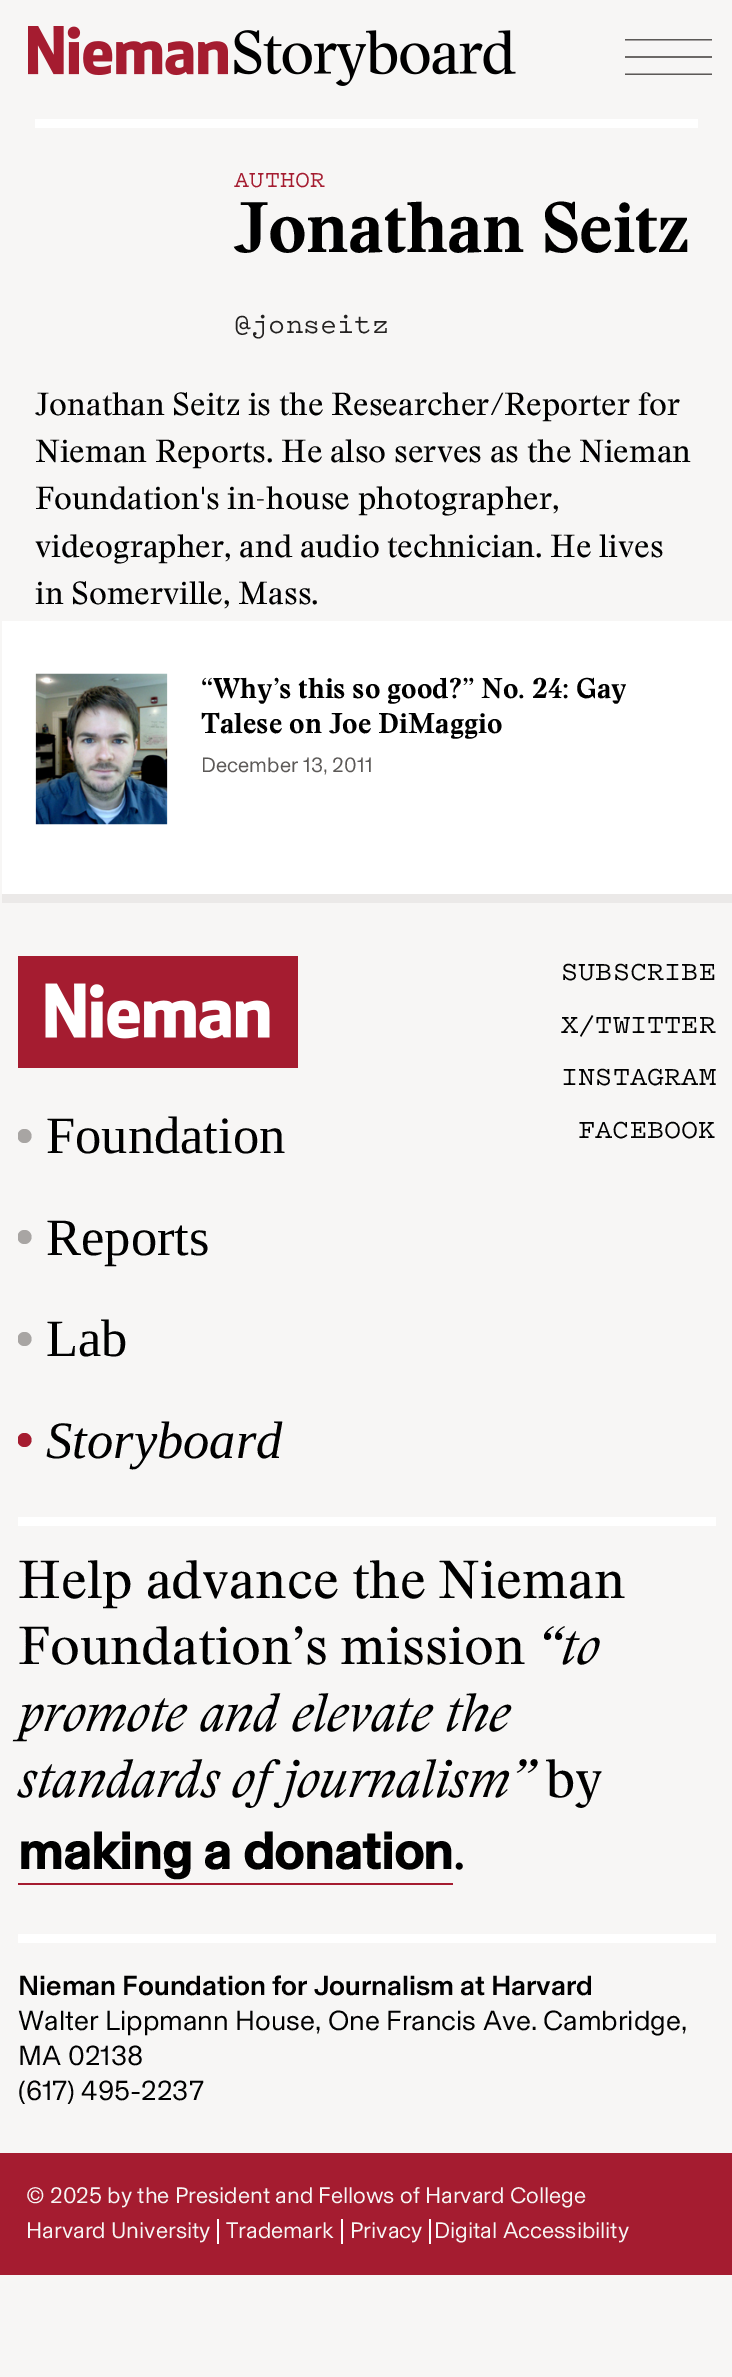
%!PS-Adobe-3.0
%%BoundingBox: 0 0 732 2377
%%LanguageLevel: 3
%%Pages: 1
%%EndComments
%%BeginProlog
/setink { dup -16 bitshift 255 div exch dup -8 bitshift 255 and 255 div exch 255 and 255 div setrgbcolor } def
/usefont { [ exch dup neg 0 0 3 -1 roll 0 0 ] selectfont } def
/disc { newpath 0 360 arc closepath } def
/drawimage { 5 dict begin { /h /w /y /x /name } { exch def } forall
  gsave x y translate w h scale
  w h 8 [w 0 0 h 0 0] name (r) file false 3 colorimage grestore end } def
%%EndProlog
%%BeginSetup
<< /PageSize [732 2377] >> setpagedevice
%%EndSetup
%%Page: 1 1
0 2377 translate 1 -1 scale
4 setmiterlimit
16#F7F6F5 setink
0 0 732 2377 rectfill
(img1.raw) 28 26 488 60 drawimage
16#6C6967 setink
625 56 87 2 rectfill
gsave
625 39 87 36 rectclip
16#5C5957 setink
1.8 setlinewidth
625 74.5 moveto 712 74.5 lineto stroke
625 39.5 moveto 712 39.5 lineto stroke
grestore
16#FFFFFF setink
35 119 663 9 rectfill
/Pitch-Medium 24.5 usefont
16#A51C30 setink
234 187 moveto 0.25 0 (AUTHOR) ashow
/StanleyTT-Bold 70 usefont
16#000000 setink
234 252 moveto -0.75 0 (Jonathan Seitz) ashow
/Pitch-Medium 28 usefont
16#242221 setink
234 333 moveto (@jonseitz) show
/StanleyTT-Regular 31.5 usefont
16#000000 setink
[
    [(Jonathan Seitz is the Researcher/Reporter for) 35 415]
    [(Nieman Reports. He also serves as the Nieman) 35 462]
    [(Foundation's in-house photographer,) 35 509]
    [(videographer, and audio technician. He lives) 35 557]
    [(in Somerville, Mass.) 35 604]
] { aload pop moveto show } forall
16#FFFFFF setink
2 621 730 273 rectfill
16#EBE9E8 setink
2 894 730 9 rectfill
(img2.raw) 35 673 133 152 drawimage
/StanleyTT-Bold 28 usefont
16#000000 setink
201 698 moveto (“Why’s this so good?” No. 24: Gay) show
201 733 moveto (Talese on Joe DiMaggio) show
/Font-Regular 21 usefont
16#5C5957 setink
201 772 moveto (December 13, 2011) show
16#FFFFFF setink
18 1517 698 9 rectfill
/Pitch-Medium 28 usefont
16#000000 setink
[
    [(SUBSCRIBE) 561 980]
    [(X/TWITTER) 561 1033]
    [(INSTAGRAM) 561 1085]
    [(FACEBOOK) 578 1138]
] { aload pop moveto show } forall
(img3.raw) 18 956 280 112 drawimage
gsave
18 1129 14 14 rectclip
16#A8A5A3 setink
24.5 1136 7 disc fill
grestore
/LiberationSerif-Regular 52.5 usefont
46 1153 moveto (Foundation) show
gsave
18 1230 14 14 rectclip
16#A8A5A3 setink
24.5 1237 7 disc fill
grestore
46 1255 moveto (Reports) show
gsave
18 1332 14 14 rectclip
16#A8A5A3 setink
24.5 1339 7 disc fill
grestore
46 1356 moveto (Lab) show
gsave
18 1433 14 14 rectclip
16#A51C30 setink
24.5 1440 7 disc fill
grestore
/LiberationSerif-Italic 52.5 usefont
46 1458 moveto (Storyboard) show
16#FFFFFF setink
18 1934 698 9 rectfill
/StanleyTT-Regular 52.5 usefont
16#000000 setink
18 1598 moveto (Help advance the Nieman) show
18 1664 moveto (Foundation’s mission) show
/StanleyTT-Italic 52.5 usefont
[
    [(“to) 537 1664]
    [(promote and elevate the) 18 1731]
    [(standards of journalism”) 18 1797]
] { aload pop moveto show } forall
/StanleyTT-Regular 52.5 usefont
546 1797 moveto (by) show
/Font-Bold 52.5 usefont
18 1869 moveto (making a donation) show
16#A51C30 setink
18 1883 435 2 rectfill
/StanleyTT-Regular 52.5 usefont
16#000000 setink
453 1869 moveto (.) show
/Font-Medium 28 usefont
18 1995 moveto (Nieman Foundation for Journalism at Harvard) show
/Font-Regular 28 usefont
[
    [(Walter Lippmann House, One Francis Ave. Cambridge,) 18 2030]
    [(MA 02138) 18 2065]
    [(\(617\) 495-2237) 18 2100]
] { aload pop moveto show } forall
16#A51C30 setink
0 2153 732 122 rectfill
/Font-Regular 22.75 usefont
16#F7F6F5 setink
26 2203 moveto (© 2025 by the President and Fellows of Harvard College) show
26 2238 moveto (Harvard University) show
16#FFFFFF setink
217 2219 2 25 rectfill
16#F7F6F5 setink
226 2238 moveto (Trademark) show
16#FFFFFF setink
341 2219 2 25 rectfill
16#F7F6F5 setink
350 2238 moveto (Privacy) show
16#FFFFFF setink
429 2219 2 25 rectfill
16#F7F6F5 setink
434 2238 moveto (Digital Accessibility) show
showpage
%%EOF
